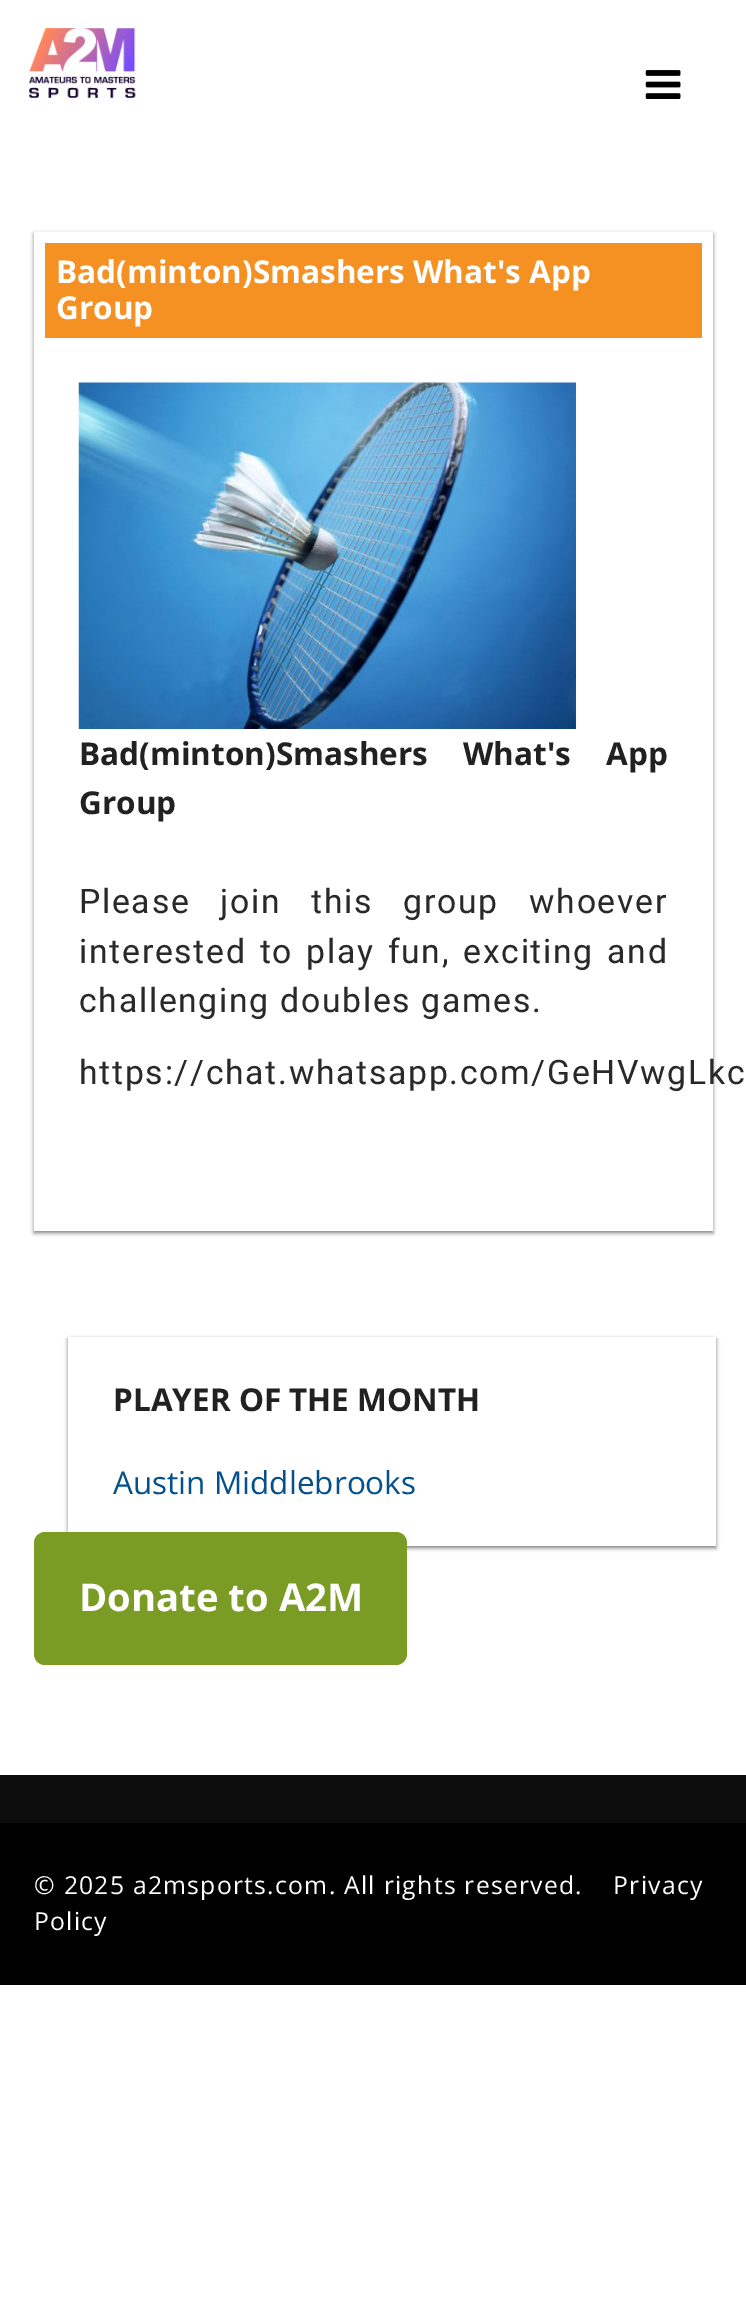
%!PS-Adobe-3.0
%%BoundingBox: 0 0 746 2310
%%LanguageLevel: 3
%%Pages: 1
%%EndComments
%%BeginProlog
/setink { dup -16 bitshift 255 div exch dup -8 bitshift 255 and 255 div exch 255 and 255 div setrgbcolor } def
/usefont { [ exch dup neg 0 0 3 -1 roll 0 0 ] selectfont } def
/setalpha { dup .setfillconstantalpha .setstrokeconstantalpha } def
/rrect { 5 dict begin { /r /h /w /y /x } { exch def } forall
  x r add y moveto x w add y 2 copy h add r arct x w add y h add x 1 index r arct
  x y h add x y r arct x y 2 copy exch w add exch r arct closepath end } def
/softshadow { 12 dict begin { /a /b /q /h /w /y /x } { exch def } forall gsave /was 0 def
  9 -2 -9 { dup b mul 4 div /e exch def 1 sub .425 mul 2.718 exch exp 1 add a .99 .min exch div /now exch def
    1 1 now sub 1 was sub div sub setalpha /was now def
    w h .min e 2 mul add 0 gt { x e sub y e sub w e 2 mul add h e 2 mul add
      q e add b .6 mul add w h .min 2 div e add .min 0 .max rrect fill } if } for grestore end } def
/drawimage { 5 dict begin { /h /w /y /x /name } { exch def } forall
  gsave x y translate w h scale
  w h 8 [w 0 0 h 0 0] name (r) file false 3 colorimage grestore end } def
%%EndProlog
%%BeginSetup
<< /PageSize [746 2310] /PageUsesTransparency true >> setpagedevice
%%EndSetup
%%Page: 1 1
0 .pushpdf14devicefilter
0 2310 translate 1 -1 scale
4 setmiterlimit
16#FFFFFF setink
0 0 746 2310 rectfill
(img1.raw) 29 28 107 70 drawimage
(img2.raw) 645 70 36 29 drawimage
gsave
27 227 moveto 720 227 lineto 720 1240 lineto 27 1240 lineto closepath 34 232 moveto 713 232 lineto 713 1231 lineto 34 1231 lineto closepath eoclip newpath
16#000000 setink
34 234 679 999 0 2 0.5 softshadow
grestore
16#F59123 setink
45 243 657 95 rectfill
/OpenSans-Bold 31.5 usefont
16#FFFFFF setink
56 283 moveto (Bad\(minton\)Smashers What's App) show
56 319 moveto (Group) show
(img3.raw) 78 382 498 347 drawimage
16#212121 setink
79 765 moveto 27 0 32 (Bad\(minton\)Smashers What's App) widthshow
79 814 moveto (Group) show
/Roboto-Regular 33.75 usefont
16#292929 setink
79 913 moveto 20 0 32 1.7 0 (Please join this group whoever) awidthshow
79 963 moveto 3 0 32 1.7 0 (interested to play fun, exciting and) awidthshow
79 1012 moveto 1.7 0 (challenging doubles games.) ashow
79 1084 moveto 1.7 0 (https://chat.whatsapp.com/GeHVwgLkc) ashow
gsave
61 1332 moveto 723 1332 lineto 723 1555 lineto 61 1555 lineto closepath 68 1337 moveto 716 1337 lineto 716 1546 lineto 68 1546 lineto closepath eoclip newpath
16#000000 setink
68 1339 648 209 0 2 0.5 softshadow
grestore
/OpenSans-Bold 31.5 usefont
16#212121 setink
113 1411 moveto (PLAYER OF THE MONTH) show
/OpenSans-Regular 31.5 usefont
16#03508C setink
113 1494 moveto (Austin Middlebrooks) show
16#7A9C25 setink
34 1532 373 133 11 rrect fill
/OpenSans-Bold 38.25 usefont
16#FFFFFF setink
79 1611 moveto (Donate to A2M) show
16#0D0D0D setink
0 1775 746 48 rectfill
16#000000 setink
0 1823 746 162 rectfill
/OpenSans-Regular 24.75 usefont
16#FFFFFF setink
34 1894 moveto 1.25 0 (© 2025 a2msports.com. All rights reserved.) ashow
613 1894 moveto 1.25 0 (Privacy) ashow
34 1930 moveto 1.25 0 (Policy) ashow
.poppdf14devicefilter showpage
%%EOF
